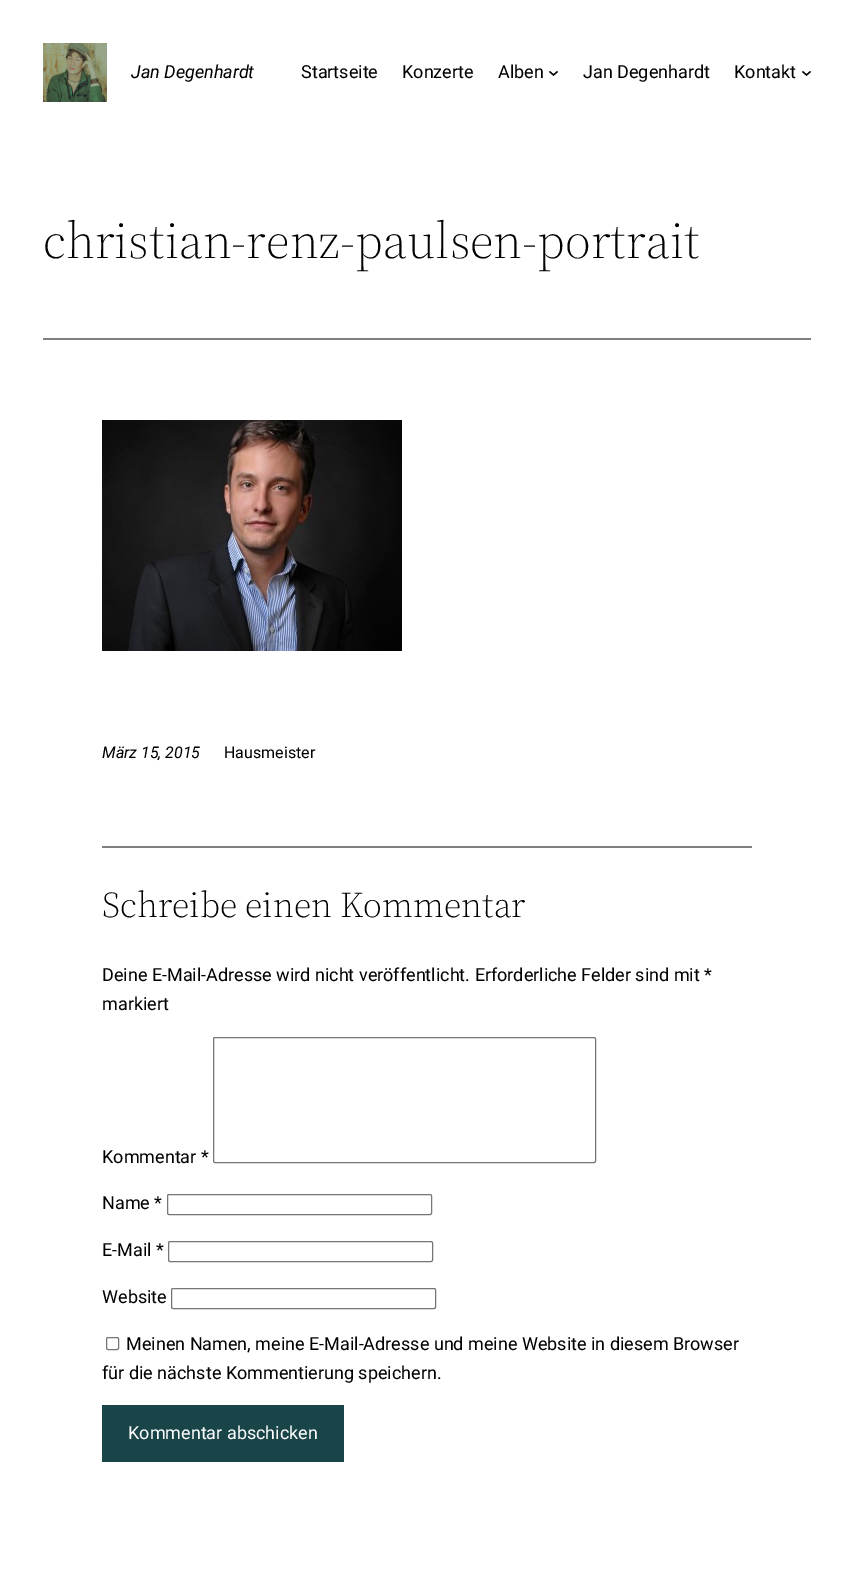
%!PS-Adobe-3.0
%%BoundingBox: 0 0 854 1594
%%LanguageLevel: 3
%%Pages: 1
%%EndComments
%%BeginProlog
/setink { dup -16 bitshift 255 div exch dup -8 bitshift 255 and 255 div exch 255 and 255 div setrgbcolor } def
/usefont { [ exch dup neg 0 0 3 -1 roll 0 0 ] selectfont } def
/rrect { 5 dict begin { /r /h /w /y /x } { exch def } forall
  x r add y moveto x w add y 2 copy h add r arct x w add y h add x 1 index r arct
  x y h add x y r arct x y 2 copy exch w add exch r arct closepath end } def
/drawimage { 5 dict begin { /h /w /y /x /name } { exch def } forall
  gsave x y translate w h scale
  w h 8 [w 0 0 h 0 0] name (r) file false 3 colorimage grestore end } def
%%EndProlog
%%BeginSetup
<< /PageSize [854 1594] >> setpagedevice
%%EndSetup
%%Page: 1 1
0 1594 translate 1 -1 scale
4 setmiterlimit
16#FFFFFF setink
0 0 854 1594 rectfill
(img1.raw) 43 43 64 59 drawimage
/Roboto-Italic 18 usefont
16#000000 setink
131 78 moveto (Jan Degenhardt) show
/Roboto-Regular 18 usefont
[
    [(Startseite) 301 78]
    [(Konzerte) 402 78]
    [(Alben) 498 78]
] { aload pop moveto show } forall
1.3 setlinewidth
549.5 71.5 moveto 553.5 75 lineto 557.5 71.5 lineto stroke
583 78 moveto (Jan Degenhardt) show
734 78 moveto (Kontakt) show
802.5 71.5 moveto 806.5 75 lineto 810.5 71.5 lineto stroke
/SourceSerif4-Light 51.25 usefont
43 258 moveto (christian-renz-paulsen-portrait) show
16#808080 setink
43 338 768 2 rectfill
(img2.raw) 102 420 300 231 drawimage
/Roboto-Italic 16 usefont
16#000000 setink
102 758 moveto (März 15, 2015) show
/Roboto-Regular 16 usefont
224 758 moveto (Hausmeister) show
16#808080 setink
102 846 650 2 rectfill
/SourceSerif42-Light 36 usefont
16#000000 setink
102 917 moveto (Schreibe einen Kommentar) show
/Roboto-Regular 18 usefont
[
    [(Deine E-Mail-Adresse wird nicht veröffentlicht. Erforderliche Felder sind mit *) 102 981]
    [(markiert) 102 1010]
    [(Kommentar *) 102 1163]
] { aload pop moveto show } forall
16#767676 setink
1 setlinewidth
213.5 1037.5 382 125 1.5 rrect stroke
16#000000 setink
102 1209 moveto (Name *) show
16#767676 setink
167.5 1194.5 264 20 1.5 rrect stroke
16#000000 setink
102 1256 moveto (E-Mail *) show
16#767676 setink
168.5 1241.5 264 20 1.5 rrect stroke
16#000000 setink
102 1303 moveto (Website) show
16#767676 setink
171.5 1288.5 264 20 1.5 rrect stroke
106.5 1337.5 12 12 1.5 rrect stroke
16#000000 setink
126 1350 moveto (Meinen Namen, meine E-Mail-Adresse und meine Website in diesem Browser) show
102 1379 moveto (für die nächste Kommentierung speichern.) show
16#1A4548 setink
102 1405 242 57 rectfill
16#FFFFFF setink
128 1439 moveto (Kommentar abschicken) show
showpage
%%EOF
